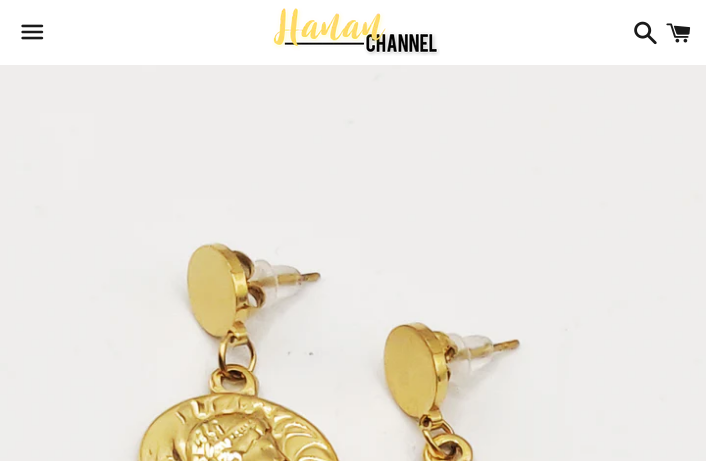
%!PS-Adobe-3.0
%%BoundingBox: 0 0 706 461
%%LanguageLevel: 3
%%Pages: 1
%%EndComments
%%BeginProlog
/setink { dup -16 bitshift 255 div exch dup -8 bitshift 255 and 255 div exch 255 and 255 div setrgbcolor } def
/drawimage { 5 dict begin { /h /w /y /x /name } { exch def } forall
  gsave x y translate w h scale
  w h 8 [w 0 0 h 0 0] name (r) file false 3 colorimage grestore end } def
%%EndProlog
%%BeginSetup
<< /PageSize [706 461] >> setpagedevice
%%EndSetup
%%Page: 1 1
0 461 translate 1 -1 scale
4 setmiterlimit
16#FFFFFF setink
0 0 706 461 rectfill
(img1.raw) 21 24 23 16 drawimage
(img2.raw) 272 8 168 48 drawimage
(img3.raw) 634 21 23 24 drawimage
(img4.raw) 666 23 25 20 drawimage
(img5.raw) 0 65 706 396 drawimage
showpage
%%EOF
